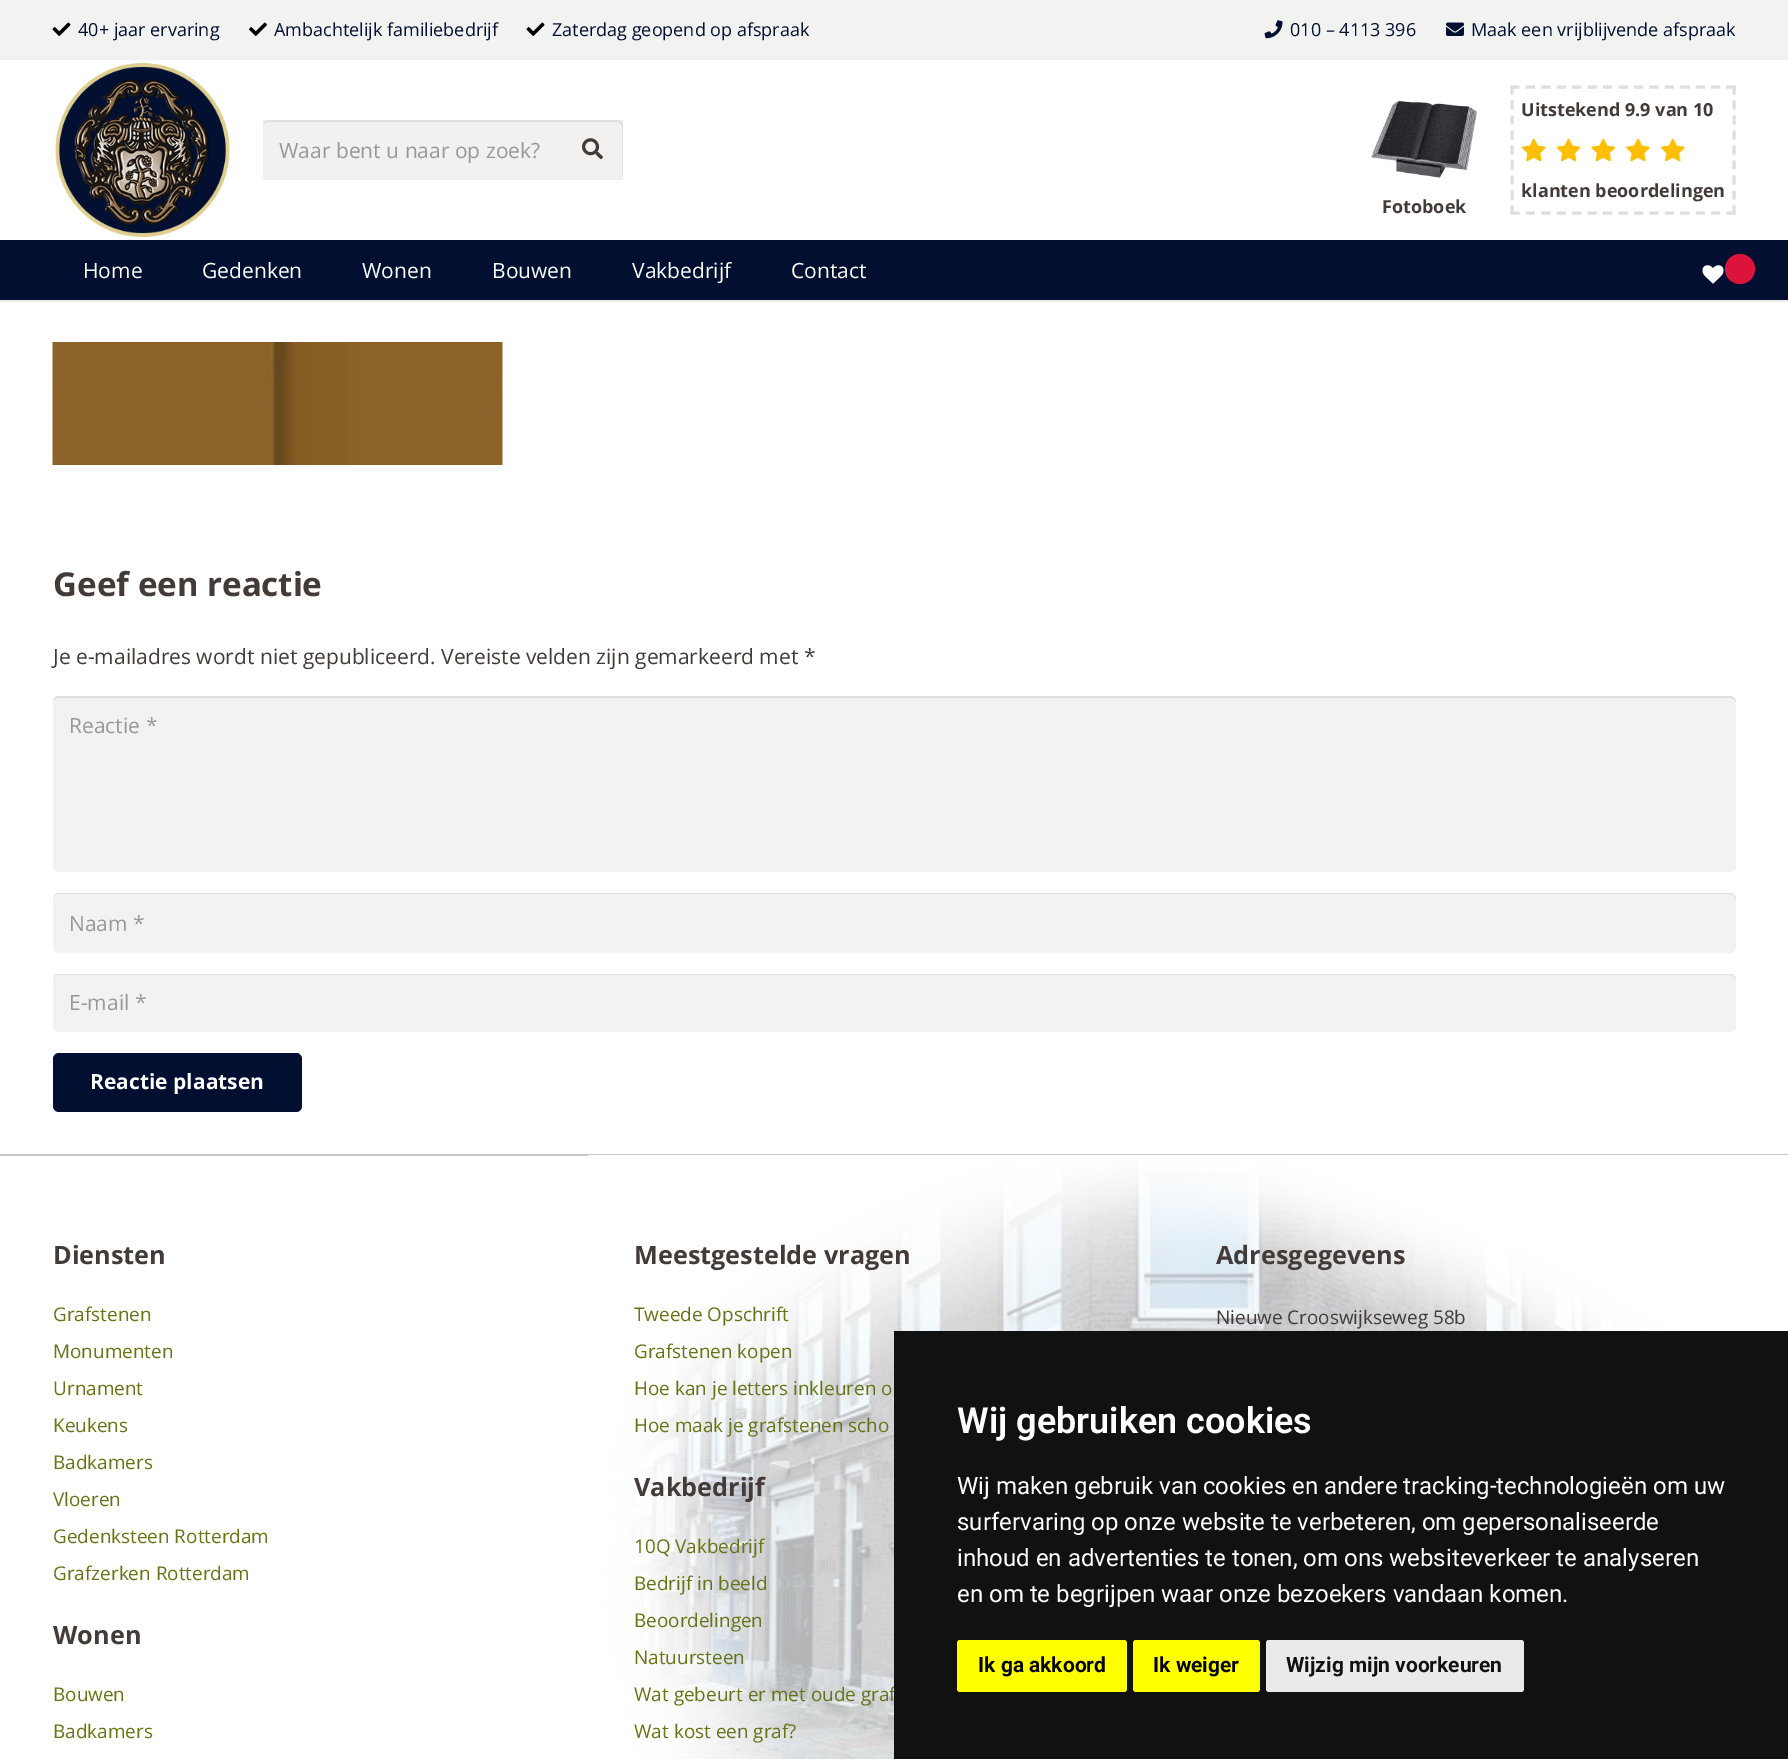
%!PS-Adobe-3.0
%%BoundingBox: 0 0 1788 1759
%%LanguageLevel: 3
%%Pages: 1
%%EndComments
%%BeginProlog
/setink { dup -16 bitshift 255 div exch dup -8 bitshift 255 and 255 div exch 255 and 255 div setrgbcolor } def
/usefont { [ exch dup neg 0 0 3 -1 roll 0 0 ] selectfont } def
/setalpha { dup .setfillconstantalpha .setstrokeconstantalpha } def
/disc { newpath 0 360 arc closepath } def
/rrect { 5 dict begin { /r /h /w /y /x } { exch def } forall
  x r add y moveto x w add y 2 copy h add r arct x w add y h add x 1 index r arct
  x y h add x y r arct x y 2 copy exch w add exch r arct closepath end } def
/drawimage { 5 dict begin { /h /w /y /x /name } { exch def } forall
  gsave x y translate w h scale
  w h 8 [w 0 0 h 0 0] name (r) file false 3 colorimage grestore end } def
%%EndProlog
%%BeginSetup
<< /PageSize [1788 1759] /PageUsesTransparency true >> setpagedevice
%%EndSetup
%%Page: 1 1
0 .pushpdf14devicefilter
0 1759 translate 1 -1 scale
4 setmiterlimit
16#FFFFFF setink
0 0 1788 1759 rectfill
16#F2F2F0 setink
0 0 1788 60 rectfill
(img1.raw) 52 22 19 14 drawimage
/OpenSans-Regular 18 usefont
16#020F31 setink
78 36 moveto (40+ jaar ervaring) show
(img2.raw) 249 22 18 14 drawimage
274 36 moveto (Ambachtelijk familiebedrijf) show
(img1.raw) 526 22 19 14 drawimage
552 36 moveto (Zaterdag geopend op afspraak) show
(img3.raw) 1264 20 19 19 drawimage
1290 36 moveto (010 – 4113 396) show
(img4.raw) 1446 22 18 14 drawimage
1471 36 moveto (Maak een vrijblijvende afspraak) show
(img5.raw) 55 63 175 174 drawimage
16#F2F1F0 setink
263 120 360 60 rectfill
16#DFDEDD setink
269 122 moveto 616 122 lineto 620 122 622 124 622 128 curveto 622 175 lineto 622 178 lineto 622 177 623 175 623 174 curveto 623 126 lineto 623 123 620 120 617 120 curveto 269 120 lineto 266 120 264 122 263 124 curveto 265 123 267 122 269 122 curveto closepath fill
/OpenSans-Regular 21 usefont
16#9A9794 setink
279 158 moveto (Waar bent u naar op zoek?) show
(img6.raw) 582 138 21 22 drawimage
16#DEDEDC setink
3 setlinewidth
[9 6.44] 0 setdash
1510.5 87 moveto 1735.5 87 lineto stroke
[9 6] 0 setdash
1734 85.5 moveto 1734 214.5 lineto stroke
[9 6.44] 0 setdash
1510.5 213 moveto 1735.5 213 lineto stroke
[9 6] 0 setdash
1512 85.5 moveto 1512 214.5 lineto stroke
/OpenSans-Bold 18 usefont
16#423B38 setink
1521 116 moveto (Uitstekend 9.9 van 10) show
(img7.raw) 1522 138 163 24 drawimage
1521 197 moveto (klanten beoordelingen) show
(img8.raw) 1371 100 106 78 drawimage
1382 213 moveto (Fotoboek) show
16#EBEBEB setink
0 300 1788 2 rectfill
16#020F31 setink
0 240 1788 60 rectfill
/OpenSans-Regular 21 usefont
16#FFFFFF setink
[
    [(Home) 83 278]
    [(Gedenken) 202 278]
    [(Wonen) 362 278]
    [(Bouwen) 492 278]
    [(Vakbedrijf) 632 278]
    [(Contact) 791 278]
] { aload pop moveto show } forall
(img9.raw) 1702 265 22 19 drawimage
16#DC143C setink
1740 269 15 disc fill
(img10.raw) 52 342 451 123 drawimage
/NotoSans-Bold 33 usefont
16#423B38 setink
53 596 moveto (Geef een reactie) show
/OpenSans-Regular 21 usefont
53 664 moveto (Je e-mailadres wordt niet gepubliceerd. Vereiste velden zijn gemarkeerd met *) show
16#F2F2F0 setink
53 696 1683 176 6 rrect fill
0.08 setalpha
16#000000 setink
59 698 moveto 1729 698 lineto 1733 698 1736 700 1736 704 curveto 1736 702 lineto 1736 699 1733 696 1730 696 curveto 59 696 lineto 56 696 54 698 53 700 curveto 55 699 57 698 59 698 curveto closepath fill
1 setalpha
16#9A9794 setink
69 733 moveto (Reactie *) show
16#F2F2F0 setink
53 893 1683 60 6 rrect fill
0.08 setalpha
16#000000 setink
59 894 moveto 1729 894 lineto 1733 894 1736 897 1736 900 curveto 1736 899 lineto 1736 896 1733 893 1730 893 curveto 59 893 lineto 57 893 55 894 54 896 curveto 55 895 57 894 59 894 curveto closepath fill
1 setalpha
16#9A9794 setink
69 931 moveto (Naam *) show
16#F2F2F0 setink
53 974 1683 58 6 rrect fill
0.08 setalpha
16#000000 setink
59 975 moveto 1729 975 lineto 1733 975 1736 978 1736 981 curveto 1736 980 lineto 1736 977 1733 974 1730 974 curveto 59 974 lineto 57 974 55 975 54 977 curveto 55 976 57 975 59 975 curveto closepath fill
1 setalpha
16#9A9794 setink
69 1010 moveto (E-mail *) show
16#020F31 setink
53 1053 249 59 6 rrect fill
/OpenSans-Bold 21 usefont
16#FFFFFF setink
90 1089 moveto (Reactie plaatsen) show
16#C8C6C5 setink
0 1154 1788 2 rectfill
(img11.raw) 588 1155 1200 604 drawimage
/OpenSans-Bold 25.25 usefont
16#423B38 setink
53 1264 moveto (Diensten) show
/OpenSans-Regular 18.9 usefont
16#677316 setink
[
    [(Grafstenen) 53 1321]
    [(Monumenten) 53 1358]
    [(Urnament) 53 1395]
    [(Keukens) 53 1432]
    [(Badkamers) 53 1469]
    [(Vloeren) 53 1506]
    [(Gedenksteen Rotterdam) 53 1543]
    [(Grafzerken Rotterdam) 53 1580]
] { aload pop moveto show } forall
/OpenSans-Bold 25.25 usefont
16#423B38 setink
53 1644 moveto (Wonen) show
/OpenSans-Regular 18.9 usefont
16#677316 setink
53 1701 moveto (Bouwen) show
53 1738 moveto (Badkamers) show
/OpenSans-Bold 25.25 usefont
16#423B38 setink
634 1264 moveto (Meestgestelde vragen) show
/OpenSans-Regular 18.9 usefont
16#677316 setink
[
    [(Tweede Opschrift) 634 1321]
    [(Grafstenen kopen) 634 1358]
    [(Hoe kan je letters inkleuren o) 634 1395]
    [(Hoe maak je grafstenen scho) 634 1432]
] { aload pop moveto show } forall
/OpenSans-Bold 25.25 usefont
16#423B38 setink
634 1496 moveto (Vakbedrijf) show
/OpenSans-Regular 18.9 usefont
16#677316 setink
[
    [(10Q Vakbedrijf) 634 1553]
    [(Bedrijf in beeld) 634 1590]
    [(Beoordelingen) 634 1627]
    [(Natuursteen) 634 1664]
    [(Wat gebeurt er met oude graf) 634 1701]
    [(Wat kost een graf?) 634 1738]
] { aload pop moveto show } forall
/OpenSans-Bold 25.25 usefont
16#423B38 setink
1216 1264 moveto (Adresgegevens) show
/OpenSans-Regular 18.9 usefont
1216 1324 moveto (Nieuwe Crooswijkseweg 58b) show
16#111111 setink
894 1331 894 428 rectfill
/Roboto-SemiBold 36 usefont
16#FFFFFF setink
957 1433 moveto (Wij gebruiken cookies) show
/Roboto-Regular 24 usefont
[
    [(Wij maken gebruik van cookies en andere tracking-technologieën om uw) 957 1494]
    [(surfervaring op onze website te verbeteren, om gepersonaliseerde) 957 1530]
    [(inhoud en advertenties te tonen, om ons websiteverkeer te analyseren) 957 1566]
    [(en om te begrijpen waar onze bezoekers vandaan komen.) 957 1602]
] { aload pop moveto show } forall
16#FFFF00 setink
957 1640 170 52 3 rrect fill
/Roboto-Bold 21 usefont
16#000000 setink
978 1672 moveto (Ik ga akkoord) show
16#FFFF00 setink
1133 1640 127 52 3 rrect fill
16#000000 setink
1153 1672 moveto (Ik weiger) show
16#EAEAEA setink
1266 1640 258 52 3 rrect fill
16#111111 setink
1286 1672 moveto (Wijzig mijn voorkeuren) show
.poppdf14devicefilter showpage
%%EOF
